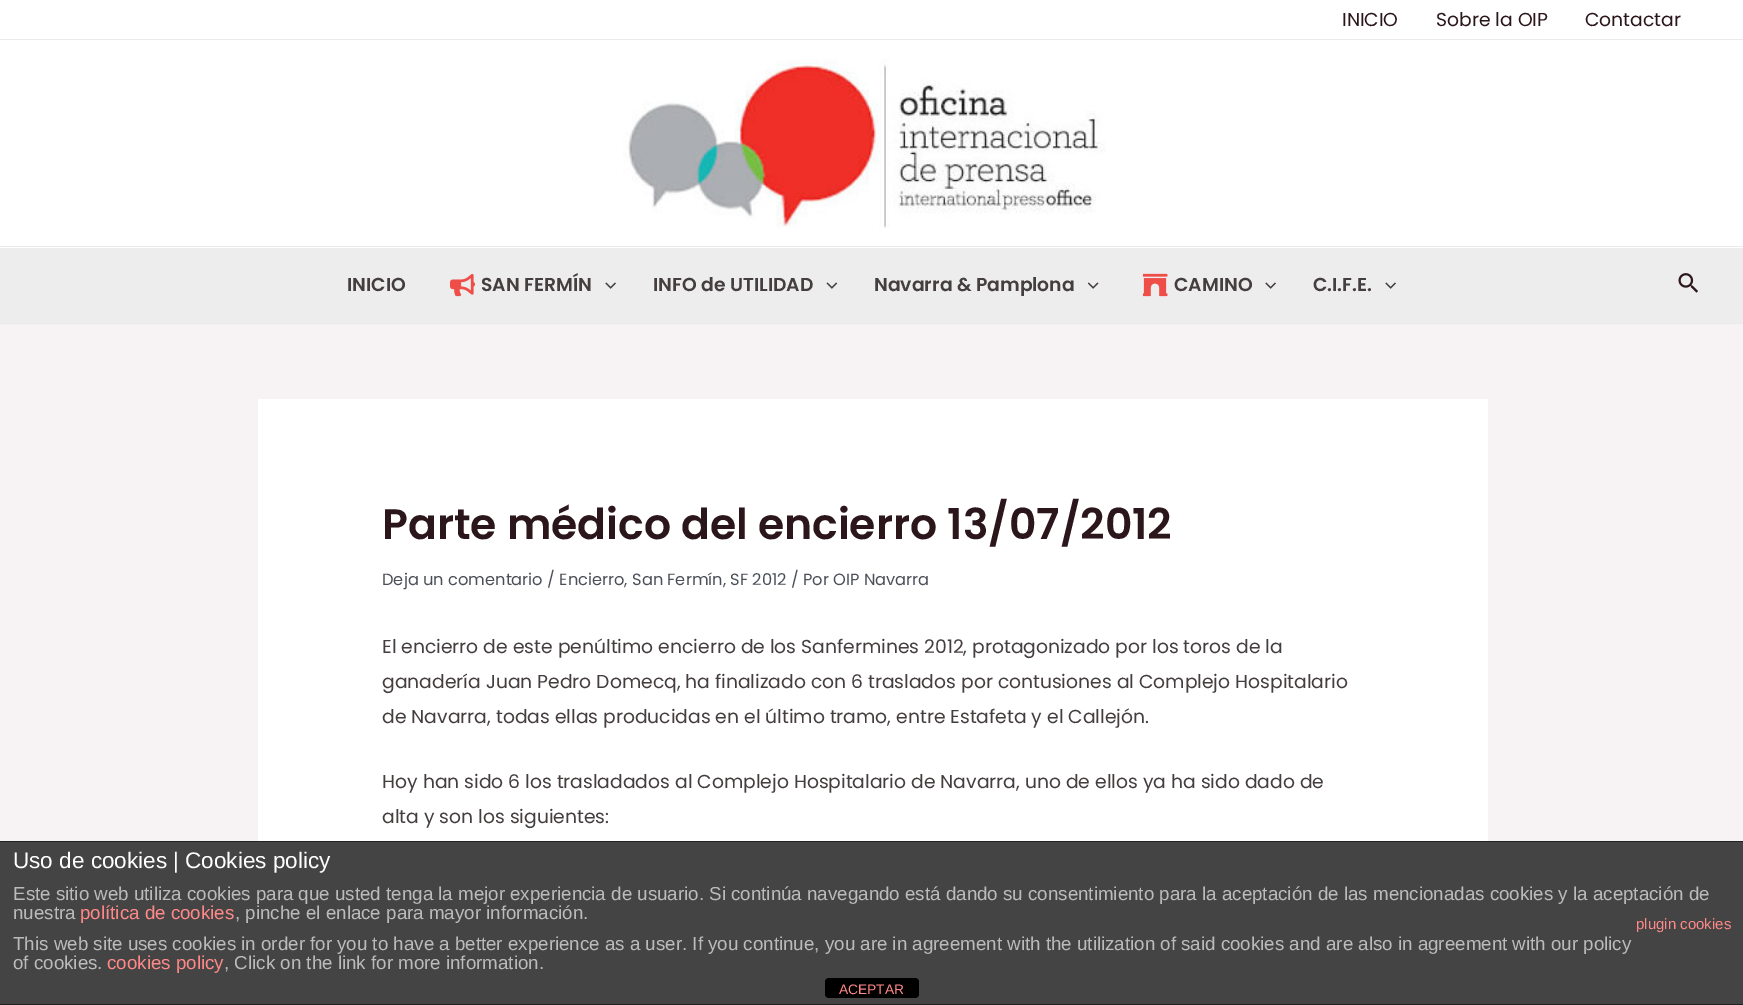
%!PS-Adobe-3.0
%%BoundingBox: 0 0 1743 1005
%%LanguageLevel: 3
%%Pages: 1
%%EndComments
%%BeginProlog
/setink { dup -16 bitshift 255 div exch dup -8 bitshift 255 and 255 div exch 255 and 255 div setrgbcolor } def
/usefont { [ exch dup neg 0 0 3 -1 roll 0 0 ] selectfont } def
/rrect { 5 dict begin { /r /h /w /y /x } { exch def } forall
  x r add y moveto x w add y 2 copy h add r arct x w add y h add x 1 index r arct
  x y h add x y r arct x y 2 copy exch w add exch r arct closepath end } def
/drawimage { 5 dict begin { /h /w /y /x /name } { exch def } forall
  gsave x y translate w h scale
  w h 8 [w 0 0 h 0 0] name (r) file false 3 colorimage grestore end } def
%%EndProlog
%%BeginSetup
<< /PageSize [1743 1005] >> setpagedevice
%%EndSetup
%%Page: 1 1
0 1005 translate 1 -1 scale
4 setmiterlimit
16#F7F3F5 setink
0 0 1743 1005 rectfill
16#FFFFFF setink
0 0 1743 39 rectfill
16#EAEAEA setink
0 39 1743 1 rectfill
/Poppins-Regular 18.75 usefont
16#2B161B setink
[
    [(INICIO) 1342 26]
    [(Sobre la OIP) 1436 26]
    [(Contactar) 1585 26]
] { aload pop moveto show } forall
16#FFFFFF setink
0 40 1743 208 rectfill
16#EAEAEA setink
0 246 1743 1 rectfill
(img1.raw) 623 59 483 169 drawimage
16#EDEDED setink
0 248 1743 75 rectfill
16#EAEAEA setink
0 323 1743 1 rectfill
/Poppins-SemiBold 18.75 usefont
16#453E3E setink
347 291 moveto (INICIO) show
(img2.raw) 450 273 25 24 drawimage
481 291 moveto (SAN FERMÍN) show
(img3.raw) 605 282 11 7 drawimage
653 291 moveto (INFO de UTILIDAD) show
(img4.raw) 826 282 12 7 drawimage
874 291 moveto (Navarra & Pamplona) show
(img5.raw) 1088 282 11 7 drawimage
(img6.raw) 1143 273 25 24 drawimage
1174 291 moveto (CAMINO) show
(img3.raw) 1265 282 11 7 drawimage
1313 291 moveto (C.I.F.E.) show
(img3.raw) 1385 282 11 7 drawimage
(img7.raw) 1678 273 20 20 drawimage
16#FFFFFF setink
258 399 1230 442 rectfill
/Poppins-SemiBold 42.5 usefont
16#2B161B setink
382 539 moveto (Parte médico del encierro 13/07/2012) show
/Poppins-Regular 16.25 usefont
16#4B4F58 setink
382 585 moveto (Deja un comentario / Encierro, San Fermín, SF 2012 / Por OIP Navarra) show
/Poppins-Regular 18.75 usefont
16#453E3E setink
[
    [(El encierro de este penúltimo encierro de los Sanfermines 2012, protagonizado por los toros de la) 382 653]
    [(ganadería Juan Pedro Domecq, ha finalizado con 6 traslados por contusiones al Complejo Hospitalario) 382 688]
    [(de Navarra, todas ellas producidas en el último tramo, entre Estafeta y el Callejón.) 382 723]
    [(Hoy han sido 6 los trasladados al Complejo Hospitalario de Navarra, uno de ellos ya ha sido dado de) 382 788]
    [(alta y son los siguientes:) 382 823]
] { aload pop moveto show } forall
[
    [0 842 1743 162 16#444444]
    [0 841 1743 1 16#222222]
    [0 1004 1743 1 16#222222]
] { aload pop setink rectfill } forall
/LiberationSans-Regular 22.5 usefont
16#FFFFFF setink
13 868 moveto (Uso de cookies | Cookies policy) show
/LiberationSans-Regular 18.75 usefont
16#BBBBBB setink
13 900 moveto (Este sitio web utiliza cookies para que usted tenga la mejor experiencia de usuario. Si continúa navegando está dando su consentimiento para la aceptación de las mencionadas cookies y la aceptación de) show
13 919 moveto (nuestra) show
16#FF8888 setink
80 919 moveto (política de cookies) show
16#BBBBBB setink
235 919 moveto (, pinche el enlace para mayor información.) show
/LiberationSans-Regular 15 usefont
16#FF8888 setink
1636 929 moveto (plugin cookies) show
/LiberationSans-Regular 18.75 usefont
16#BBBBBB setink
13 950 moveto (This web site uses cookies in order for you to have a better experience as a user. If you continue, you are in agreement with the utilization of said cookies and are also in agreement with our policy) show
13 969 moveto (of cookies.) show
16#FF8888 setink
107 969 moveto (cookies policy) show
16#BBBBBB setink
224 969 moveto (, Click on the link for more information.) show
16#000000 setink
825 978 94 20 4 rrect fill
/LiberationSans-Regular 13.75 usefont
16#FF8888 setink
839 994 moveto (ACEPTAR) show
showpage
%%EOF
